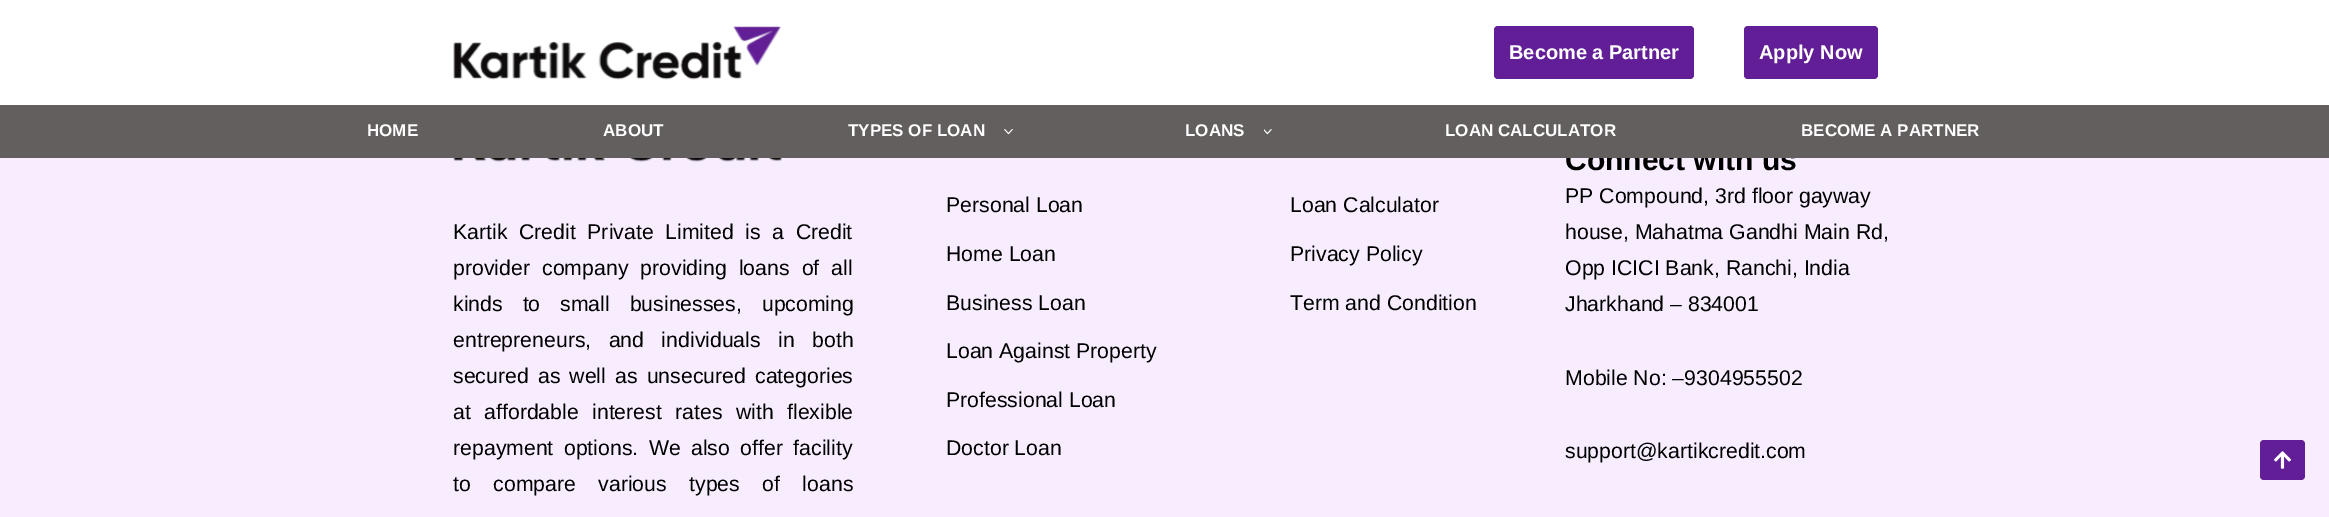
%!PS-Adobe-3.0
%%BoundingBox: 0 0 2329 517
%%LanguageLevel: 3
%%Pages: 1
%%EndComments
%%BeginProlog
/setink { dup -16 bitshift 255 div exch dup -8 bitshift 255 and 255 div exch 255 and 255 div setrgbcolor } def
/usefont { [ exch dup neg 0 0 3 -1 roll 0 0 ] selectfont } def
/rrect { 5 dict begin { /r /h /w /y /x } { exch def } forall
  x r add y moveto x w add y 2 copy h add r arct x w add y h add x 1 index r arct
  x y h add x y r arct x y 2 copy exch w add exch r arct closepath end } def
/drawimage { 5 dict begin { /h /w /y /x /name } { exch def } forall
  gsave x y translate w h scale
  w h 8 [w 0 0 h 0 0] name (r) file false 3 colorimage grestore end } def
%%EndProlog
%%BeginSetup
<< /PageSize [2329 517] >> setpagedevice
%%EndSetup
%%Page: 1 1
0 517 translate 1 -1 scale
4 setmiterlimit
16#F7EDFF setink
0 0 2329 517 rectfill
16#FFFFFF setink
0 0 2329 105 rectfill
(img1.raw) 453 26 328 54 drawimage
16#621E97 setink
1494 26 200 53 4 rrect fill
/LiberationSans-Bold 20 usefont
16#FFFFFF setink
1509 59 moveto (Become a Partner) show
16#621E97 setink
1744 26 134 53 4 rrect fill
16#FFFFFF setink
1759 59 moveto (Apply Now) show
/LiberationSans-Bold 30 usefont
16#000000 setink
1565 170 moveto (Connect with us) show
16#645F5F setink
0 105 2329 53 rectfill
/LiberationSans-Bold 17 usefont
16#FFFFFF setink
[
    [(HOME) 367 136]
    [(ABOUT) 603 136]
    [(TYPES OF LOAN) 848 136]
] { aload pop moveto show } forall
(img2.raw) 1004 129 9 6 drawimage
1185 136 moveto (LOANS) show
(img3.raw) 1264 129 8 6 drawimage
1445 136 moveto (LOAN CALCULATOR) show
1801 136 moveto (BECOME A PARTNER) show
(img4.raw) 453 158 329 4 drawimage
/LiberationSans-Regular 21.25 usefont
16#000000 setink
453 239 moveto 5.75 0 32 (Kartik Credit Private Limited is a Credit) widthshow
453 275 moveto 6.25 0 32 (provider company providing loans of all) widthshow
453 311 moveto 14 0 32 (kinds to small businesses, upcoming) widthshow
453 347 moveto 11.5 0 32 (entrepreneurs, and individuals in both) widthshow
453 383 moveto 3.25 0 32 (secured as well as unsecured categories) widthshow
453 419 moveto 7.5 0 32 (at affordable interest rates with flexible) widthshow
453 455 moveto 4.5 0 32 (repayment options. We also offer facility) widthshow
453 491 moveto 16.5 0 32 (to compare various types of loans) widthshow
[
    [(Personal Loan) 946 212]
    [(Home Loan) 946 261]
    [(Business Loan) 946 310]
    [(Loan Against Property) 946 358]
    [(Professional Loan) 946 407]
    [(Doctor Loan) 946 455]
    [(Loan Calculator) 1290 212]
    [(Privacy Policy) 1290 261]
    [(Term and Condition) 1290 310]
    [(PP Compound, 3rd floor gayway) 1565 203]
    [(house, Mahatma Gandhi Main Rd,) 1565 239]
    [(Opp ICICI Bank, Ranchi, India) 1565 275]
    [(Jharkhand – 834001) 1565 311]
    [(Mobile No: –9304955502) 1565 385]
    [(support@kartikcredit.com) 1565 458]
] { aload pop moveto show } forall
16#621E97 setink
2260 440 45 40 4 rrect fill
(img5.raw) 2274 451 17 18 drawimage
showpage
%%EOF
